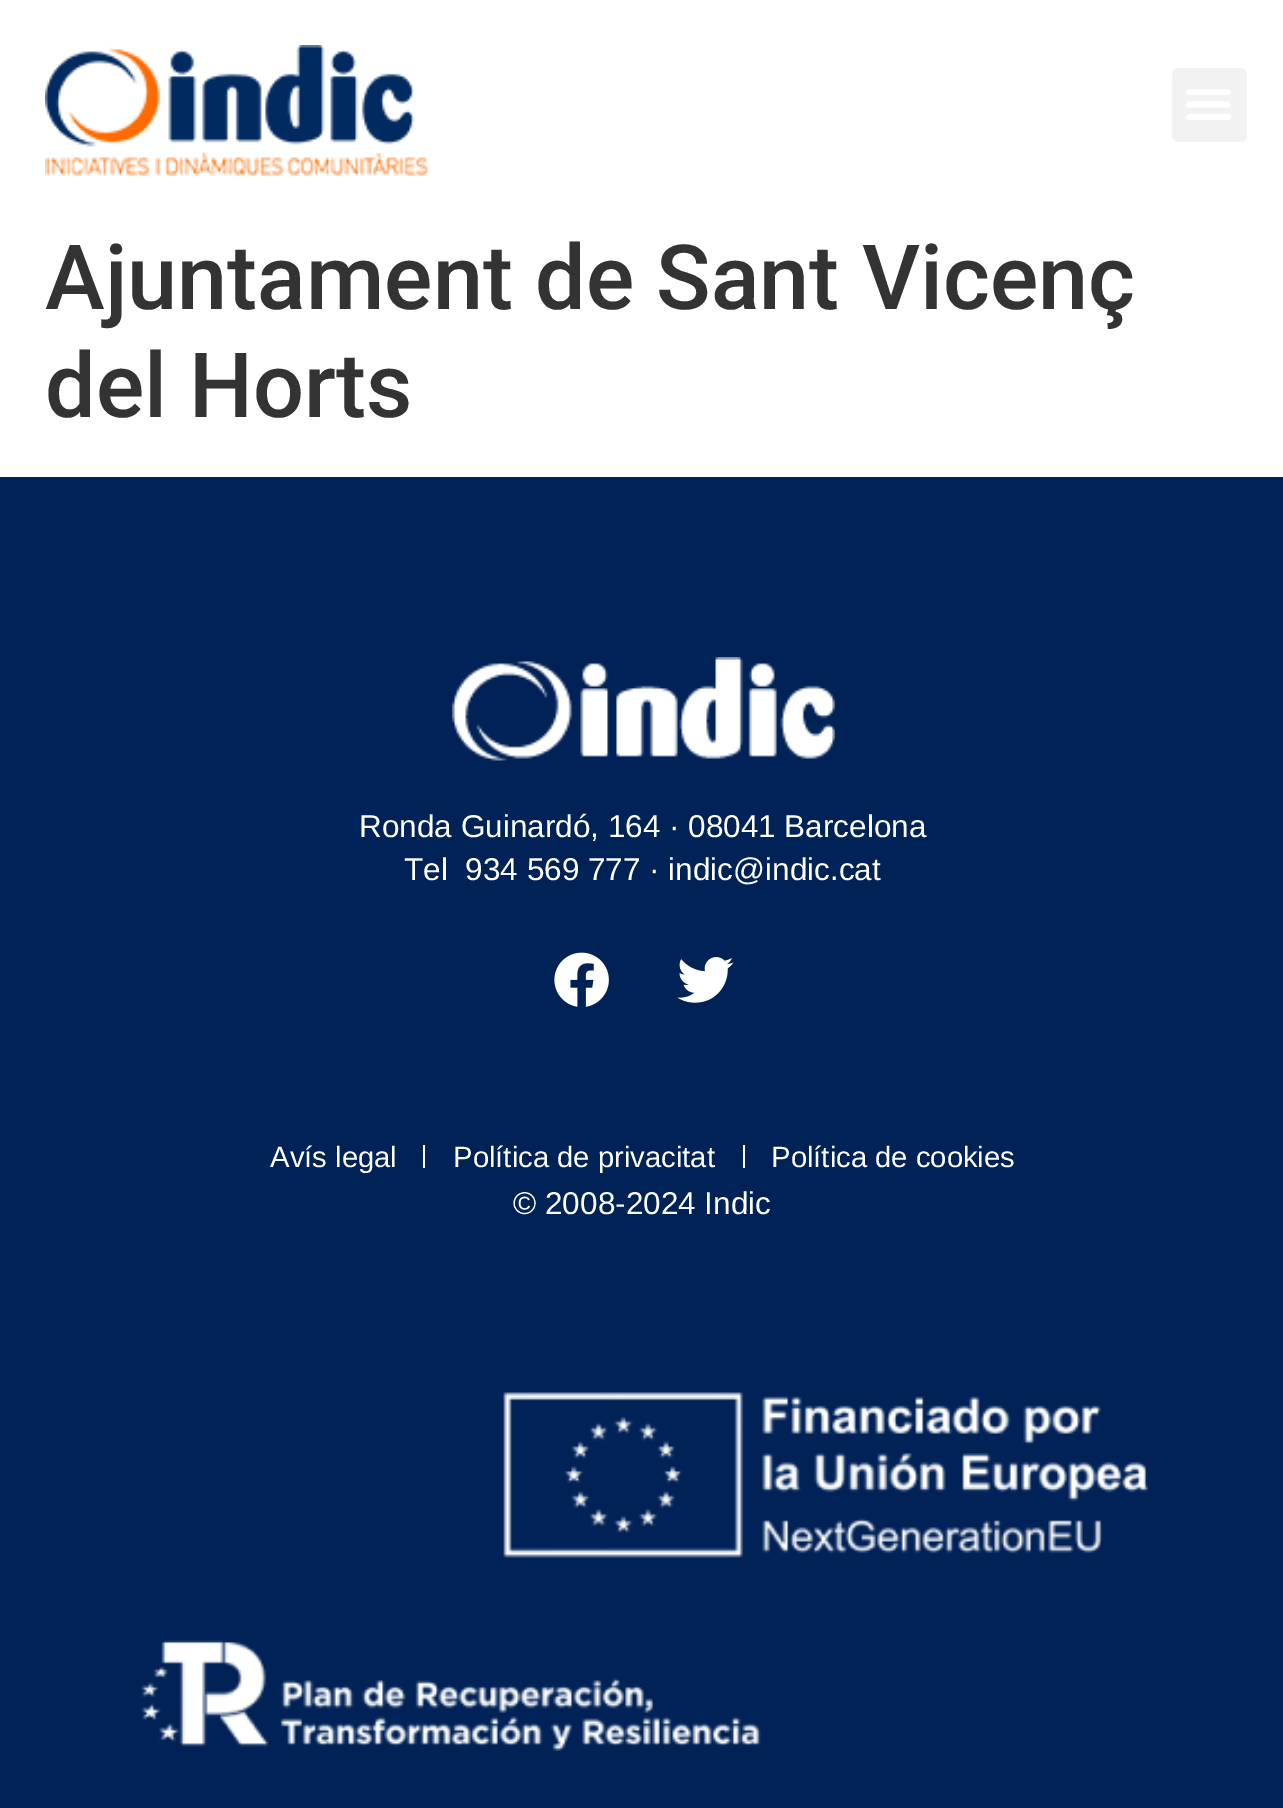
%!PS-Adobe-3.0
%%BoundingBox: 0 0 1283 1808
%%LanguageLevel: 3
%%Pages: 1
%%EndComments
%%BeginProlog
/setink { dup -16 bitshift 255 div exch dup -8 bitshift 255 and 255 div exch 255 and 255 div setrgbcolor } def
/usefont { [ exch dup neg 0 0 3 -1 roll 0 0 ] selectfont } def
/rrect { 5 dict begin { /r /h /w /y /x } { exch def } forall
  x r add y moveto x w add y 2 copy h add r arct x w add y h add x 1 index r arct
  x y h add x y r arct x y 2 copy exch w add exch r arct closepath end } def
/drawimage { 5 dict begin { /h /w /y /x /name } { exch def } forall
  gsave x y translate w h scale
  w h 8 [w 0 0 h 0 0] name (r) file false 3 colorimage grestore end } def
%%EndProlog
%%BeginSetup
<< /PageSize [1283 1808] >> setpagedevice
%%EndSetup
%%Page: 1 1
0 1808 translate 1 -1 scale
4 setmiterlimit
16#FFFFFF setink
0 0 1283 1808 rectfill
(img1.raw) 45 45 383 131 drawimage
16#F2F2F2 setink
1172 68 75 74 7 rrect fill
(img2.raw) 1185 89 46 31 drawimage
/Roboto-Medium 90 usefont
16#333333 setink
45 309 moveto (Ajuntament de Sant Vicenç) show
45 417 moveto (del Horts) show
16#002257 setink
0 477 1283 1331 rectfill
(img3.raw) 452 657 383 104 drawimage
/LiberationSans-Regular 31.5 usefont
16#FFFFFF setink
359 837 moveto (Ronda Guinardó, 164 · 08041 Barcelona) show
404 880 moveto (Tel  934 569 777 · indic@indic.cat) show
(img4.raw) 554 952 55 55 drawimage
(img5.raw) 677 957 57 46 drawimage
/LiberationSans-Regular 29.25 usefont
270 1167 moveto (Avís legal) show
423 1145 2 23 rectfill
453 1167 moveto (Política de privacitat) show
743 1145 2 23 rectfill
771 1167 moveto (Política de cookies) show
/LiberationSans-Regular 31.5 usefont
513 1214 moveto (© 2008-2024 Indic) show
(img6.raw) 503 1392 646 166 drawimage
(img7.raw) 141 1640 620 111 drawimage
showpage
%%EOF
